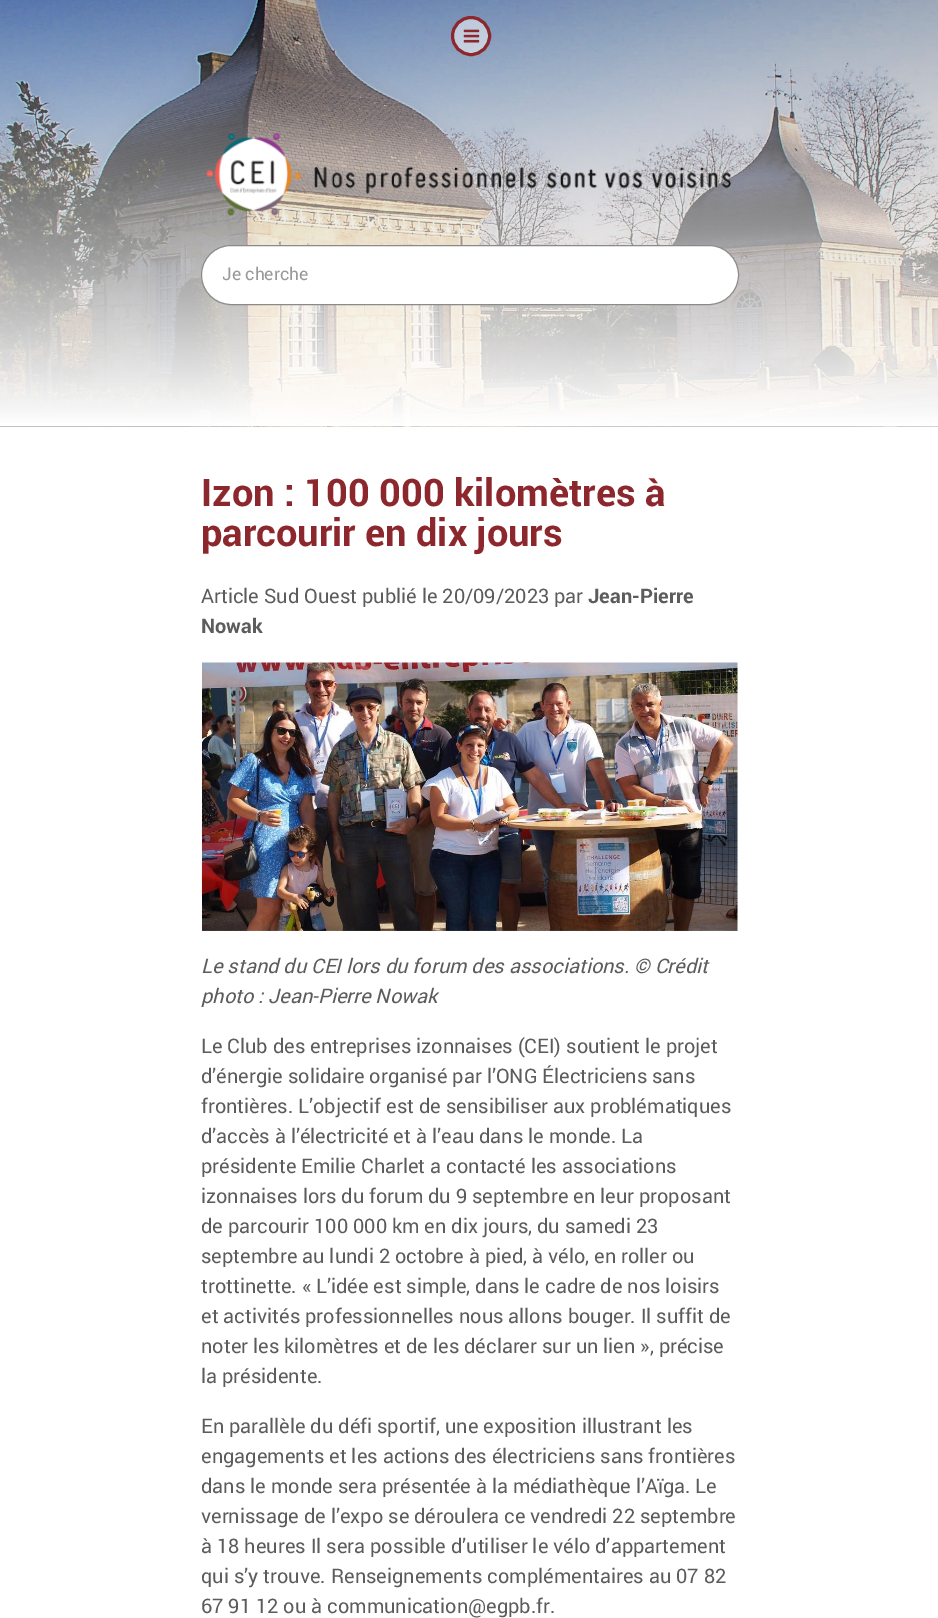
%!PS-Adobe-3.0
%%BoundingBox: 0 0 938 1618
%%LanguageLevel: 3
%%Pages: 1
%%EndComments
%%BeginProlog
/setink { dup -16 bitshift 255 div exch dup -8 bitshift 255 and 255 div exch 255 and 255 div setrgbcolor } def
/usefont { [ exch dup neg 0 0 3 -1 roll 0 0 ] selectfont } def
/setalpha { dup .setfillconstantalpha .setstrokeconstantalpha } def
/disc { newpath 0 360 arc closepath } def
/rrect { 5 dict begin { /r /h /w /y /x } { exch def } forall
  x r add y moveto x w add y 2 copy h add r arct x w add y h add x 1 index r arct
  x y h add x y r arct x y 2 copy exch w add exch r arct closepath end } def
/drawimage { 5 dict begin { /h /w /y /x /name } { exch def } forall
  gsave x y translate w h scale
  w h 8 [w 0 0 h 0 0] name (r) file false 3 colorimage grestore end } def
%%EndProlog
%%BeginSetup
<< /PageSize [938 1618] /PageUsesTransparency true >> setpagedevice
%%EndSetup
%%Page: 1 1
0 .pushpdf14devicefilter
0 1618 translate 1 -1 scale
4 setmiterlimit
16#FFFFFF setink
0 0 938 1618 rectfill
(img2.raw) 0 0 938 427 drawimage
0.5 setalpha
471 36 18.5 disc fill
1 setalpha
16#8C272D setink
3 setlinewidth
471 36 18.5 disc stroke
(img1.raw) 463 29 17 14 drawimage
(img3.raw) 206 133 526 83 drawimage
16#FFFFFF setink
201.5 245.5 537 59 29.5 rrect gsave fill grestore
16#8A8A8A setink
1 setlinewidth
stroke
gsave
223 264 495 21 rectclip
/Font-Regular 17.5 usefont
16#999999 setink
222 280 moveto (Je cherche) show
grestore
/Font-Bold 38 usefont
16#8C272D setink
201 506 moveto (Izon : 100 000 kilomètres à) show
201 546 moveto (parcourir en dix jours) show
/Font-Regular 20 usefont
16#5C5C5C setink
201 603 moveto (Article Sud Ouest publié le 20/09/2023 par) show
/Font-Bold 20 usefont
588 603 moveto (Jean-Pierre) show
201 633 moveto (Nowak) show
(img4.raw) 201 662 537 270 drawimage
/Font-Italic 20 usefont
201 973 moveto (Le stand du CEI lors du forum des associations. © Crédit) show
201 1003 moveto (photo : Jean-Pierre Nowak) show
/Font-Regular 20 usefont
[
    [(Le Club des entreprises izonnaises \(CEI\) soutient le projet) 201 1053]
    [(d’énergie solidaire organisé par l’ONG Électriciens sans) 201 1083]
    [(frontières. L’objectif est de sensibiliser aux problématiques) 201 1113]
    [(d’accès à l’électricité et à l’eau dans le monde. La) 201 1143]
    [(présidente Emilie Charlet a contacté les associations) 201 1173]
    [(izonnaises lors du forum du 9 septembre en leur proposant) 201 1203]
    [(de parcourir 100 000 km en dix jours, du samedi 23) 201 1233]
    [(septembre au lundi 2 octobre à pied, à vélo, en roller ou) 201 1263]
    [(trottinette. « L’idée est simple, dans le cadre de nos loisirs) 201 1293]
    [(et activités professionnelles nous allons bouger. Il suffit de) 201 1323]
    [(noter les kilomètres et de les déclarer sur un lien », précise) 201 1353]
    [(la présidente.) 201 1383]
    [(En parallèle du défi sportif, une exposition illustrant les) 201 1433]
    [(engagements et les actions des électriciens sans frontières) 201 1463]
    [(dans le monde sera présentée à la médiathèque l’Aïga. Le) 201 1493]
    [(vernissage de l’expo se déroulera ce vendredi 22 septembre) 201 1523]
    [(à 18 heures Il sera possible d’utiliser le vélo d’appartement) 201 1553]
    [(qui s’y trouve. Renseignements complémentaires au 07 82) 201 1583]
    [(67 91 12 ou à communication@egpb.fr.) 201 1613]
] { aload pop moveto show } forall
.poppdf14devicefilter showpage
%%EOF
